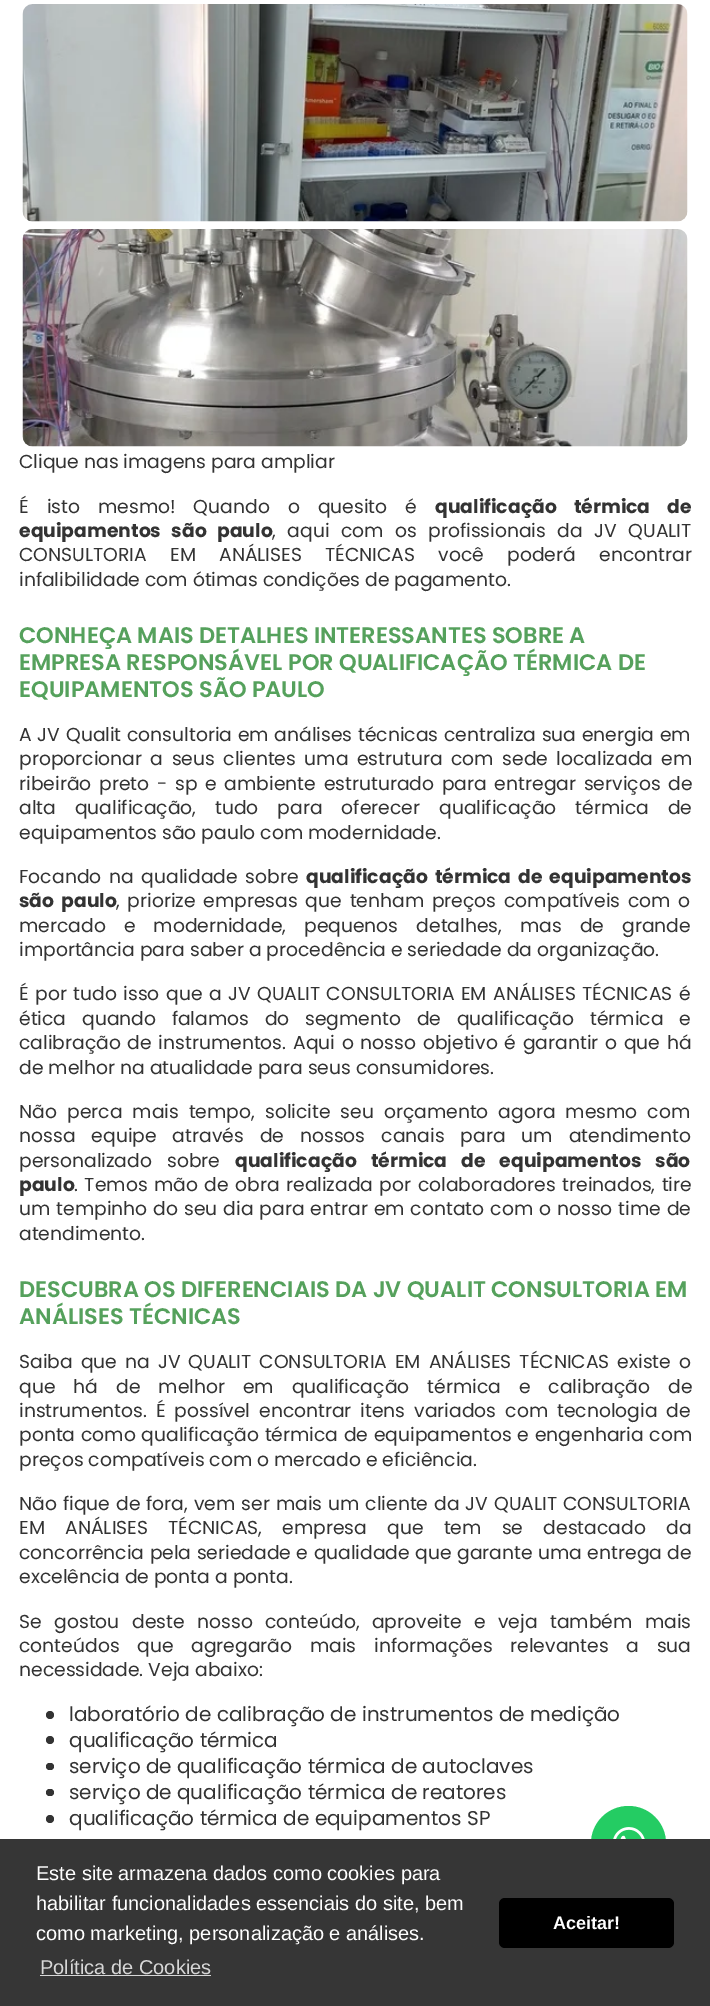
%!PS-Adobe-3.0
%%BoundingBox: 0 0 710 2006
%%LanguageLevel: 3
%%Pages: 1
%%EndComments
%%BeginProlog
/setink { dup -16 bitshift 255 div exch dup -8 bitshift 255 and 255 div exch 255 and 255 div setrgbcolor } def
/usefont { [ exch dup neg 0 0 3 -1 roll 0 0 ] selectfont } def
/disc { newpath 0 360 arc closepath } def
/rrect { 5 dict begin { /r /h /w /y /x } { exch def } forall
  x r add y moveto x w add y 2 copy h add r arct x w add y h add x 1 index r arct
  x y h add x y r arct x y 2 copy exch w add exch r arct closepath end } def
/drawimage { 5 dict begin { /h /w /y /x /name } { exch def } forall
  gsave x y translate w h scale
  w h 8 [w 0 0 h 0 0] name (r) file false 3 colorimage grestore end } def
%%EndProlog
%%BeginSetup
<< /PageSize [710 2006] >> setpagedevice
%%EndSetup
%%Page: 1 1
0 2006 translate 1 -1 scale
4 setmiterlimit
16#FFFFFF setink
0 0 710 2006 rectfill
(img1.raw) 22 4 666 218 drawimage
(img2.raw) 22 229 666 218 drawimage
/Poppins-Regular 18.75 usefont
16#333333 setink
19 468 moveto (Clique nas imagens para ampliar) show
19 513 moveto 13 0 32 (É isto mesmo! Quando o quesito é) widthshow
/Poppins-Bold 18.75 usefont
435 513 moveto 13 0 32 (qualificação térmica de) widthshow
19 537 moveto 6.5 0 32 (equipamentos são paulo) widthshow
/Poppins-Regular 18.75 usefont
272 537 moveto 6.5 0 32 (, aqui com os profissionais da JV QUALIT) widthshow
19 561 moveto 18.25 0 32 (CONSULTORIA EM ANÁLISES TÉCNICAS você poderá encontrar) widthshow
19 586 moveto (infalibilidade com ótimas condições de pagamento.) show
/Poppins-SemiBold 22.5 usefont
16#55A15C setink
[
    [(CONHEÇA MAIS DETALHES INTERESSANTES SOBRE A) 19 643]
    [(EMPRESA RESPONSÁVEL POR QUALIFICAÇÃO TÉRMICA DE) 19 670]
    [(EQUIPAMENTOS SÃO PAULO) 19 697]
] { aload pop moveto show } forall
/Poppins-Regular 18.75 usefont
16#333333 setink
19 741 moveto 0.75 0 32 (A JV Qualit consultoria em análises técnicas centraliza sua energia em) widthshow
19 765 moveto 3.5 0 32 (proporcionar a seus clientes uma estrutura com sede localizada em) widthshow
19 790 moveto 2.75 0 32 (ribeirão preto - sp e ambiente estruturado para entregar serviços de) widthshow
19 814 moveto 14 0 32 (alta qualificação, tudo para oferecer qualificação térmica de) widthshow
19 839 moveto (equipamentos são paulo com modernidade.) show
19 883 moveto 2.75 0 32 (Focando na qualidade sobre) widthshow
/Poppins-Bold 18.75 usefont
306 883 moveto 3 0 32 (qualificação térmica de equipamentos) widthshow
19 907 moveto 3 0 32 (são paulo) widthshow
/Poppins-Regular 18.75 usefont
116 907 moveto 2.75 0 32 (, priorize empresas que tenham preços compatíveis com o) widthshow
19 932 moveto 13 0 32 (mercado e modernidade, pequenos detalhes, mas de grande) widthshow
19 956 moveto (importância para saber a procedência e seriedade da organização.) show
19 1000 moveto 1.5 0 32 (É por tudo isso que a JV QUALIT CONSULTORIA EM ANÁLISES TÉCNICAS é) widthshow
19 1025 moveto 10.75 0 32 (ética quando falamos do segmento de qualificação térmica e) widthshow
19 1049 moveto 1.75 0 32 (calibração de instrumentos. Aqui o nosso objetivo é garantir o que há) widthshow
19 1074 moveto (de melhor na atualidade para seus consumidores.) show
19 1118 moveto 5 0 32 (Não perca mais tempo, solicite seu orçamento agora mesmo com) widthshow
19 1142 moveto 11 0 32 (nossa equipe através de nossos canais para um atendimento) widthshow
19 1167 moveto 10 0 32 (personalizado sobre) widthshow
/Poppins-Bold 18.75 usefont
235 1167 moveto 10 0 32 (qualificação térmica de equipamentos são) widthshow
19 1191 moveto (paulo) show
/Poppins-Regular 18.75 usefont
74 1191 moveto 1.5 0 32 (. Temos mão de obra realizada por colaboradores treinados, tire) widthshow
19 1215 moveto 1 0 32 (um tempinho do seu dia para entrar em contato com o nosso time de) widthshow
19 1240 moveto (atendimento.) show
/Poppins-SemiBold 22.5 usefont
16#55A15C setink
19 1297 moveto (DESCUBRA OS DIFERENCIAIS DA JV QUALIT CONSULTORIA EM) show
19 1324 moveto (ANÁLISES TÉCNICAS) show
/Poppins-Regular 18.75 usefont
16#333333 setink
19 1368 moveto 3 0 32 (Saiba que na JV QUALIT CONSULTORIA EM ANÁLISES TÉCNICAS existe o) widthshow
19 1393 moveto 13 0 32 (que há de melhor em qualificação térmica e calibração de) widthshow
19 1417 moveto 4 0 32 (instrumentos. É possível encontrar itens variados com tecnologia de) widthshow
19 1441 moveto 0.75 0 32 (ponta como qualificação térmica de equipamentos e engenharia com) widthshow
19 1466 moveto (preços compatíveis com o mercado e eficiência.) show
19 1510 moveto 1 0 32 (Não fique de fora, vem ser mais um cliente da JV QUALIT CONSULTORIA) widthshow
19 1534 moveto 15.25 0 32 (EM ANÁLISES TÉCNICAS, empresa que tem se destacado da) widthshow
19 1559 moveto 0.5 0 32 (concorrência pela seriedade e qualidade que garante uma entrega de) widthshow
19 1583 moveto (excelência de ponta a ponta.) show
19 1628 moveto 7.5 0 32 (Se gostou deste nosso conteúdo, aproveite e veja também mais) widthshow
19 1652 moveto 12.75 0 32 (conteúdos que agregarão mais informações relevantes a sua) widthshow
19 1676 moveto (necessidade. Veja abaixo:) show
50 1715 4 disc fill
/Poppins-Regular 20 usefont
69 1721 moveto (laboratório de calibração de instrumentos de medição) show
50 1740 4 disc fill
69 1747 moveto (qualificação térmica) show
46 1763 8 7 3.5 rrect fill
69 1773 moveto (serviço de qualificação térmica de autoclaves) show
46 1789 8 7 3.5 rrect fill
69 1799 moveto (serviço de qualificação térmica de reatores) show
50 1819 4 disc fill
69 1825 moveto (qualificação térmica de equipamentos SP) show
16#24CC63 setink
628.5 1843.5 37.5 disc fill
(img3.raw) 613 1827 32 12 drawimage
16#363636 setink
0 1839 710 167 rectfill
/LiberationSans-Regular 20 usefont
16#FFFFFF setink
[
    [(Este site armazena dados como cookies para) 36 1880]
    [(habilitar funcionalidades essenciais do site, bem) 36 1910]
    [(como marketing, personalização e análises.) 36 1940]
] { aload pop moveto show } forall
16#D7D7D7 setink
40 1974 moveto (Política de Cookies) show
40 1975 171 1 rectfill
16#000000 setink
499 1898 175 50 6 rrect fill
/LiberationSans-Bold 18 usefont
16#FFFFFF setink
553 1929 moveto (Aceitar!) show
showpage
%%EOF
